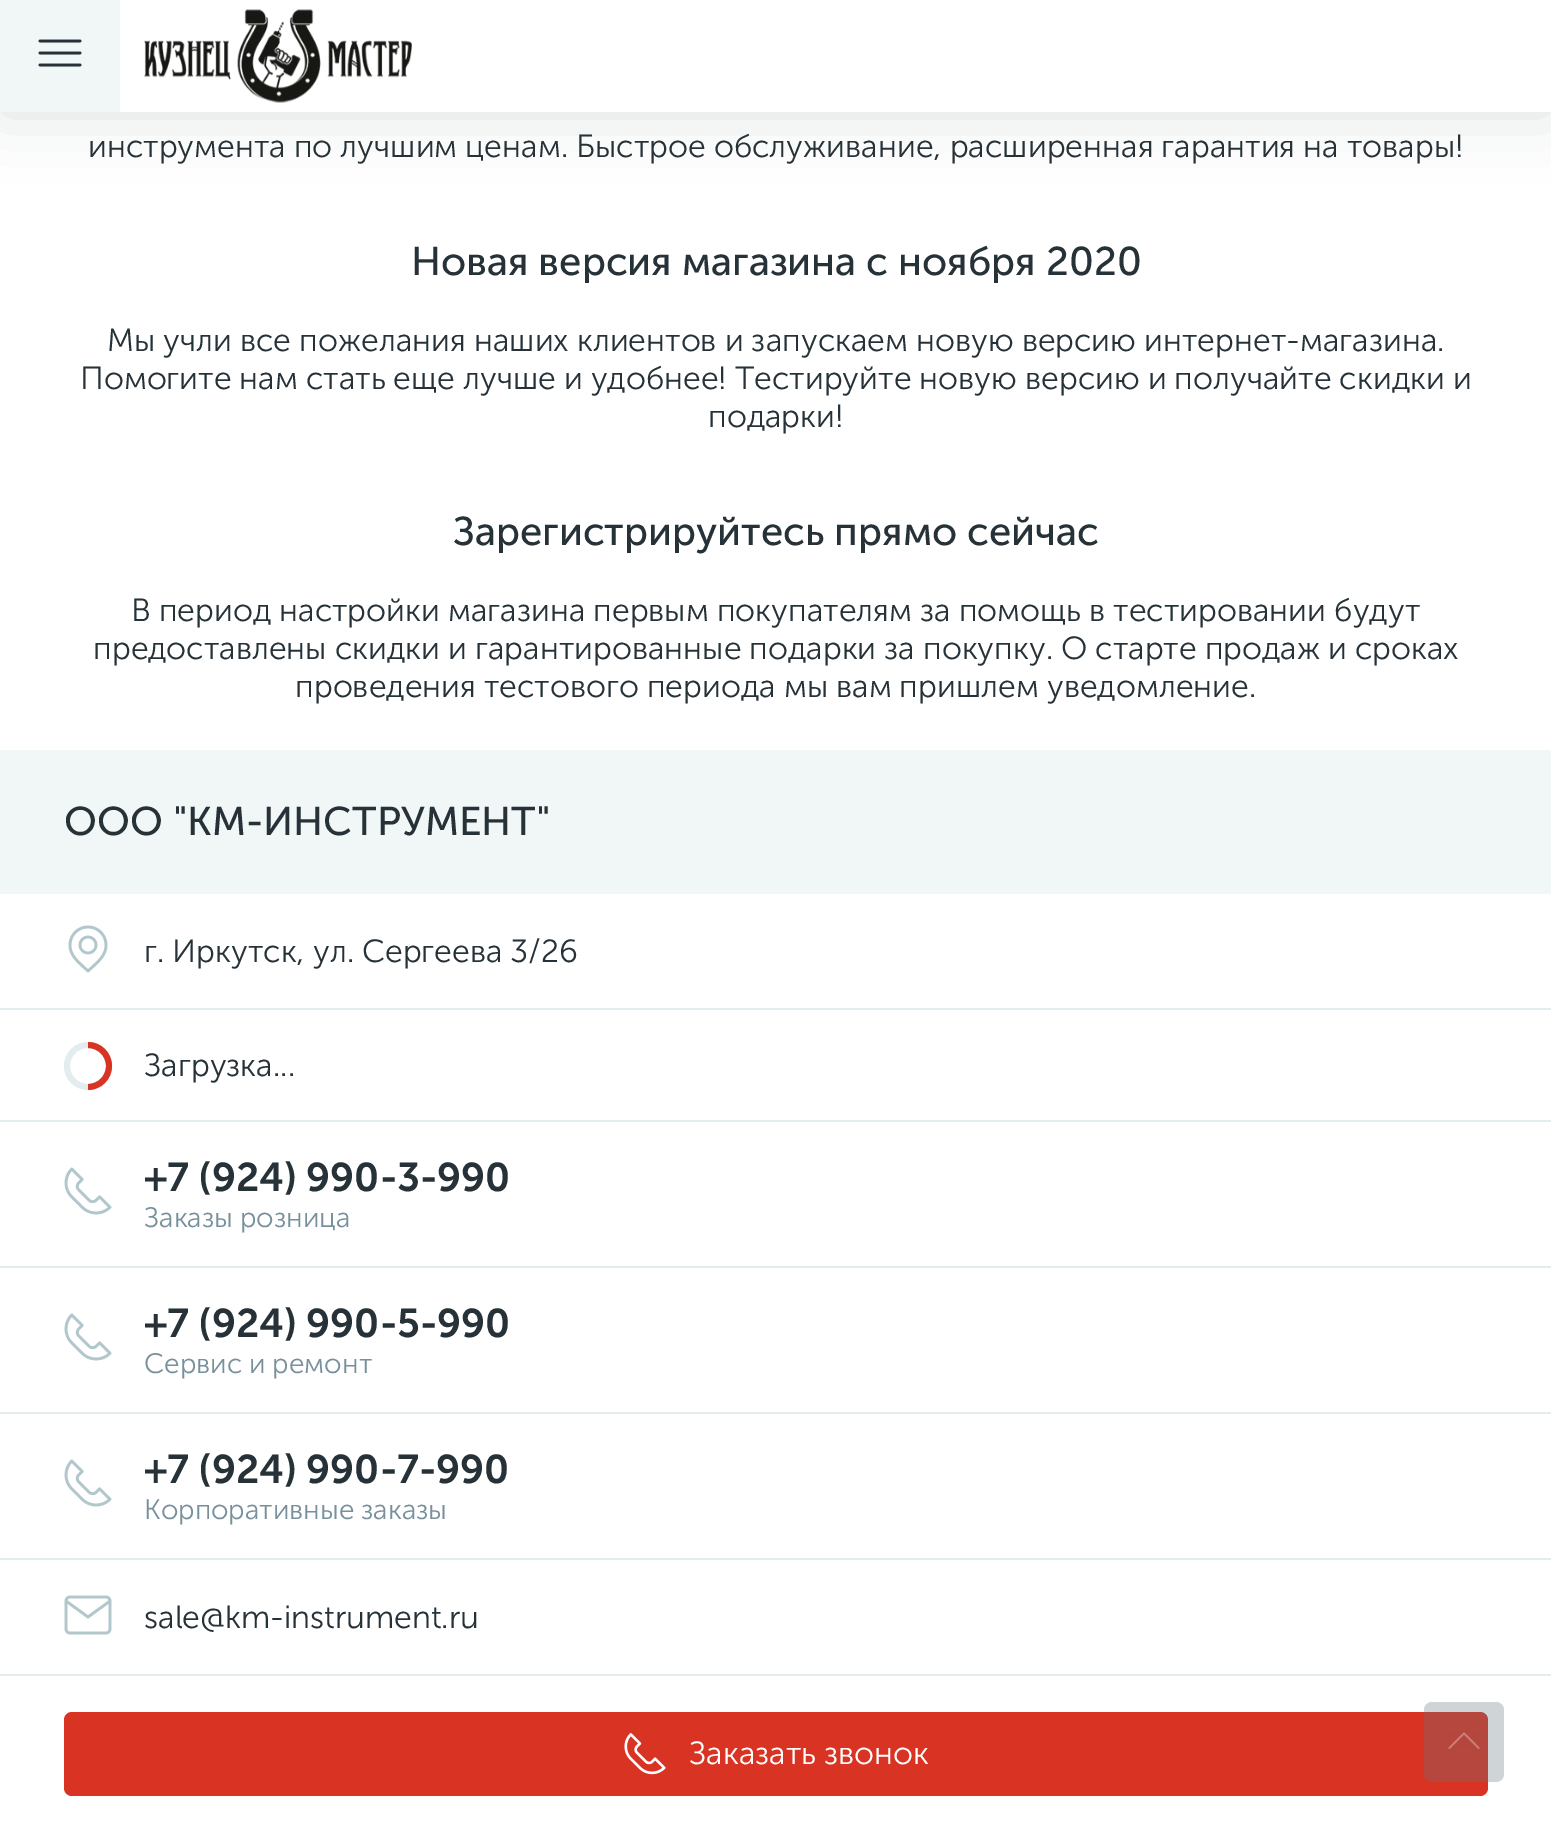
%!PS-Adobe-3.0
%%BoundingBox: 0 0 1551 1825
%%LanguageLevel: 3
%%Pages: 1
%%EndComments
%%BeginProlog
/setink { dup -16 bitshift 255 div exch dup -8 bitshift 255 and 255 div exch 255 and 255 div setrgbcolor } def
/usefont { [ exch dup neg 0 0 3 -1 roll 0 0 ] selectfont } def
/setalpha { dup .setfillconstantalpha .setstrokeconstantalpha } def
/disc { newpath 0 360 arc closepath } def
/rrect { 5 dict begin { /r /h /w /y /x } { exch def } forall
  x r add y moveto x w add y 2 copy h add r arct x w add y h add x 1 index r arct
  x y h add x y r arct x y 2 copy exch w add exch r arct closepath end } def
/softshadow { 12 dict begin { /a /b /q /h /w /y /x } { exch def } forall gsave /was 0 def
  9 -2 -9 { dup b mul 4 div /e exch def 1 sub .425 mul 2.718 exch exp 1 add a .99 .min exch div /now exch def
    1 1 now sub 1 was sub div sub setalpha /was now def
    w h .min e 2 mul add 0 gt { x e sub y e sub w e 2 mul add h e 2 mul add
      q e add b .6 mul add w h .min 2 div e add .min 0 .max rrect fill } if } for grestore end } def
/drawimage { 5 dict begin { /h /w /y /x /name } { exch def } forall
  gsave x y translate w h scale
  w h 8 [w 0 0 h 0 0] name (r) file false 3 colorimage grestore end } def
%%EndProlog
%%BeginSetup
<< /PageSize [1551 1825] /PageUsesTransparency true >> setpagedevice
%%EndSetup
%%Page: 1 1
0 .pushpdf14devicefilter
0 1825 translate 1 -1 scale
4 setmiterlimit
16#FFFFFF setink
0 0 1551 1825 rectfill
16#263238 setink
0 0 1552 112 0 32 0.16 softshadow
16#FFFFFF setink
120 0 1431 112 rectfill
16#F1F6F7 setink
0 0 120 112 rectfill
(img1.raw) 38 39 44 28 drawimage
(img2.raw) 144 9 268 94 drawimage
/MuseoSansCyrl-Light 32 usefont
16#263238 setink
88 157 moveto (инструмента по лучшим ценам. Быстрое обслуживание, расширенная гарантия на товары!) show
/MuseoSansCyrl-Regular 40 usefont
411 275 moveto (Новая версия магазина с ноября 2020) show
/MuseoSansCyrl-Light 32 usefont
[
    [(Мы учли все пожелания наших клиентов и запускаем новую версию интернет-магазина.) 107 351]
    [(Помогите нам стать еще лучше и удобнее! Тестируйте новую версию и получайте скидки и) 80 389]
    [(подарки!) 708 427]
] { aload pop moveto show } forall
/MuseoSansCyrl-Regular 40 usefont
453 545 moveto (Зарегистрируйтесь прямо сейчас) show
/MuseoSansCyrl-Light 32 usefont
[
    [(В период настройки магазина первым покупателям за помощь в тестировании будут) 131 621]
    [(предоставлены скидки и гарантированные подарки за покупку. О старте продаж и сроках) 93 659]
    [(проведения тестового периода мы вам пришлем уведомление.) 295 697]
] { aload pop moveto show } forall
16#F1F6F7 setink
0 750 1551 144 rectfill
/MuseoSansCyrl-Regular 40 usefont
16#263238 setink
64 835 moveto (ООО "КМ-ИНСТРУМЕНТ") show
16#E3ECEF setink
0 1008 1551 2 rectfill
(img3.raw) 68 925 40 48 drawimage
/MuseoSansCyrl-Light 32 usefont
16#263238 setink
144 962 moveto (г. Иркутск, ул. Сергеева 3/26) show
16#E3ECEF setink
0 1120 1551 2 rectfill
6 setlinewidth
88 1066 21 disc stroke
gsave
88 1042 24 48 rectclip
16#D93324 setink
88 1066 21 disc stroke
grestore
16#263238 setink
144 1076 moveto (Загрузка...) show
16#E3ECEF setink
0 1266 1551 2 rectfill
(img4.raw) 64 1167 48 48 drawimage
/MuseoSansCyrl-SemiBold 40 usefont
16#263238 setink
144 1191 moveto (+7 \(924\) 990-3-990) show
/MuseoSansCyrl-Light 28 usefont
16#78909C setink
144 1227 moveto (Заказы розница) show
16#E3ECEF setink
0 1412 1551 2 rectfill
(img4.raw) 64 1313 48 48 drawimage
/MuseoSansCyrl-SemiBold 40 usefont
16#263238 setink
144 1337 moveto (+7 \(924\) 990-5-990) show
/MuseoSansCyrl-Light 28 usefont
16#78909C setink
144 1373 moveto (Сервис и ремонт) show
16#E3ECEF setink
0 1558 1551 2 rectfill
(img4.raw) 64 1459 48 48 drawimage
/MuseoSansCyrl-SemiBold 40 usefont
16#263238 setink
144 1483 moveto (+7 \(924\) 990-7-990) show
/MuseoSansCyrl-Light 28 usefont
16#78909C setink
144 1519 moveto (Корпоративные заказы) show
16#E3ECEF setink
0 1674 1551 2 rectfill
(img5.raw) 64 1595 48 40 drawimage
/MuseoSansCyrl-Light 32 usefont
16#263238 setink
144 1628 moveto (sale@km-instrument.ru) show
16#D93324 setink
64 1712 1424 84 8 rrect fill
(img6.raw) 624 1733 42 42 drawimage
16#FFFFFF setink
689 1764 moveto (Заказать звонок) show
0.3 setalpha
16#61747A setink
1424 1702 80 80 8 rrect fill
1 setalpha
(img7.raw) 1448 1732 32 17 drawimage
.poppdf14devicefilter showpage
%%EOF
